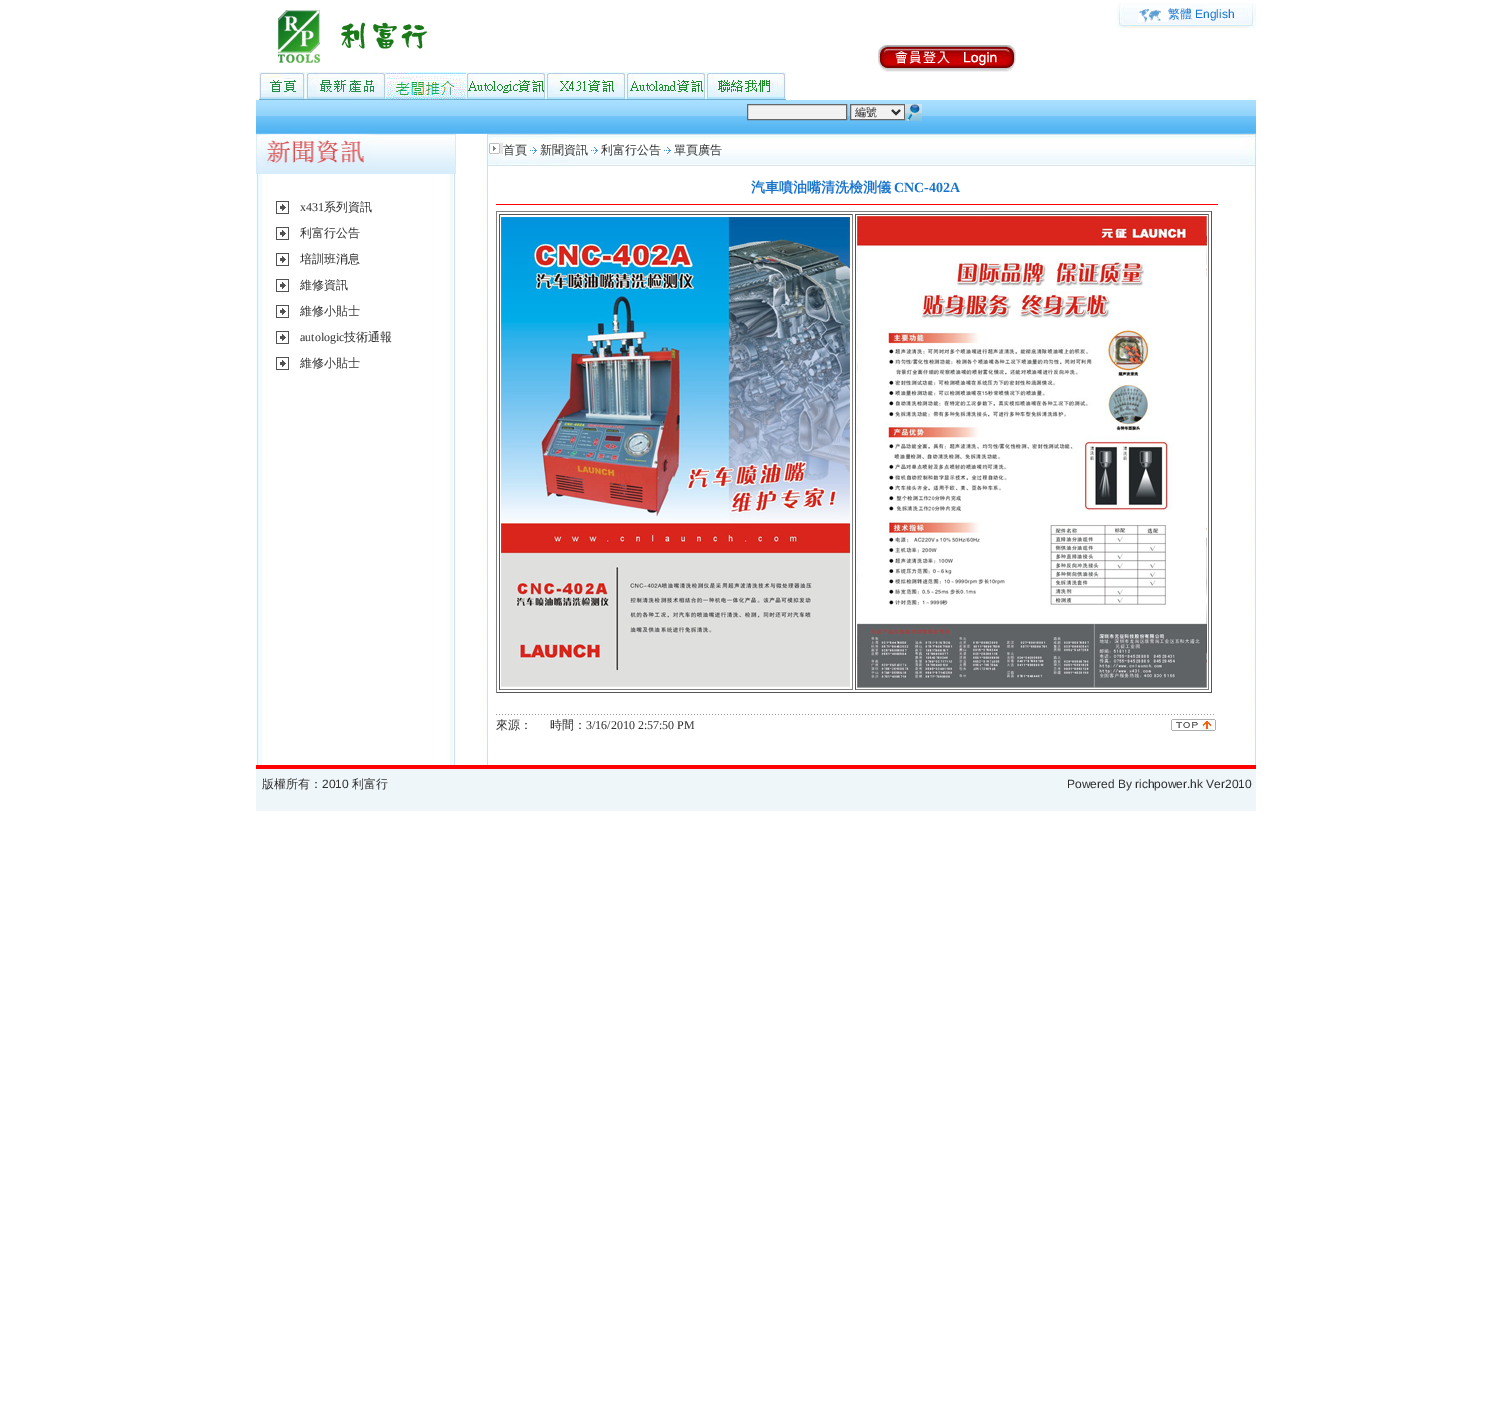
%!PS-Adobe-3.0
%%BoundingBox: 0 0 1511 1427
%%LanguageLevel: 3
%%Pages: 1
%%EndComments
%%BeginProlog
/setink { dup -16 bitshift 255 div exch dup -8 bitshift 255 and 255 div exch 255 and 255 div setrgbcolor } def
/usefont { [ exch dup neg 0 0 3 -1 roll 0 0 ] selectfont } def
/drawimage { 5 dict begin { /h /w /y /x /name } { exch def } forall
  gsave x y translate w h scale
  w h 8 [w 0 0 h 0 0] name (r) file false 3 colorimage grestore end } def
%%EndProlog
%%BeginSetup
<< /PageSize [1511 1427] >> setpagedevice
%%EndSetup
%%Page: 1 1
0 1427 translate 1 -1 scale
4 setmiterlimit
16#FFFFFF setink
0 0 1511 1427 rectfill
(img1.raw) 277 9 150 54 drawimage
(img2.raw) 1117 3 139 25 drawimage
(img3.raw) 1138 8 30 14 drawimage
/WenQuanYiZenHei-Medium 12 usefont
16#1874CD setink
1168 18 moveto (繁體) show
/LiberationSans-Regular 12 usefont
1195 18 moveto (English) show
(img4.raw) 878 45 138 27 drawimage
(img5.raw) 259 72 47 28 drawimage
(img6.raw) 306 72 80 28 drawimage
(img7.raw) 386 72 80 28 drawimage
(img8.raw) 466 72 80 28 drawimage
(img9.raw) 546 72 80 28 drawimage
(img10.raw) 626 72 80 28 drawimage
(img11.raw) 706 72 80 28 drawimage
(img12.raw) 256 100 1000 34 drawimage
16#F2F2F2 setink
747.5 104.5 moveto 846.5 104.5 lineto 846.5 119.5 lineto 747.5 119.5 lineto closepath gsave fill grestore
16#666666 setink
stroke
16#F2F2F2 setink
850.5 104.5 moveto 904.5 104.5 lineto 904.5 119.5 lineto 850.5 119.5 lineto closepath gsave fill grestore
16#666666 setink
stroke
16#2F2F2F setink
2 setlinewidth
892 110 moveto 896 114 lineto 900 110 lineto stroke
/WenQuanYiZenHei-Medium 11 usefont
855 116 moveto (編號) show
(img13.raw) 905 104 17 17 drawimage
(img14.raw) 256 174 200 591 drawimage
(img15.raw) 256 134 200 40 drawimage
(img16.raw) 276 201 13 13 drawimage
/LiberationSerif-Regular 12 usefont
300 211 moveto (x431) show
/WenQuanYiZenHei-Medium 12 usefont
324 211 moveto (系列資訊) show
(img16.raw) 276 227 13 13 drawimage
300 237 moveto (利富行公告) show
(img16.raw) 276 253 13 13 drawimage
300 263 moveto (培訓班消息) show
(img16.raw) 276 279 13 13 drawimage
300 289 moveto (維修資訊) show
(img16.raw) 276 305 13 13 drawimage
300 315 moveto (維修小貼士) show
(img16.raw) 276 331 13 13 drawimage
/LiberationSerif-Regular 12 usefont
300 341 moveto (autologic) show
/WenQuanYiZenHei-Medium 12 usefont
344 341 moveto (技術通報) show
(img16.raw) 276 357 13 13 drawimage
300 367 moveto (維修小貼士) show
(img17.raw) 480 134 776 32 drawimage
(img18.raw) 489 143 14 11 drawimage
503 154 moveto (首頁) show
(img19.raw) 530 147 7 7 drawimage
540 154 moveto (新聞資訊) show
(img20.raw) 591 147 7 7 drawimage
601 154 moveto (利富行公告) show
(img20.raw) 664 147 7 7 drawimage
674 154 moveto (單頁廣告) show
(img21.raw) 480 166 776 599 drawimage
/WenQuanYiZenHei-Bold 14 usefont
16#1874CD setink
751 192 moveto (汽車噴油嘴清洗檢測儀) show
/LiberationSerif-Bold 14 usefont
894 192 moveto (CNC-402A) show
[
    [496 204 722 1 16#FF0000]
    [496 211 716 1 16#808080]
    [1211 211 1 482 16#555555]
    [496 692 716 1 16#555555]
    [496 211 1 482 16#808080]
    [499 214 354 1 16#555555]
    [852 214 1 476 16#808080]
    [499 689 354 1 16#808080]
    [499 214 1 476 16#555555]
] { aload pop setink rectfill } forall
(img22.raw) 501 217 350 470 drawimage
[
    [855 214 354 1 16#555555]
    [1208 214 1 476 16#808080]
    [855 689 354 1 16#808080]
    [855 214 1 476 16#555555]
] { aload pop setink rectfill } forall
(img23.raw) 857 216 350 472 drawimage
(img24.raw) 496 714 718 1 drawimage
/WenQuanYiZenHei-Medium 12 usefont
16#2F2F2F setink
496 729 moveto (來源：) show
550 729 moveto (時間：) show
/LiberationSerif-Regular 12 usefont
586 729 moveto (3/16/2010 2:57:50 PM) show
(img25.raw) 1171 719 45 12 drawimage
16#FF0000 setink
256 765 1000 4 rectfill
16#EEF6F9 setink
256 769 1000 42 rectfill
/WenQuanYiZenHei-Medium 12 usefont
16#2F2F2F setink
262 788 moveto (版權所有：) show
/LiberationSans-Regular 12 usefont
322 788 moveto (2010) show
/WenQuanYiZenHei-Medium 12 usefont
352 788 moveto (利富行) show
/LiberationSans-Regular 12 usefont
1067 788 moveto (Powered By richpower.hk Ver2010) show
showpage
%%EOF
